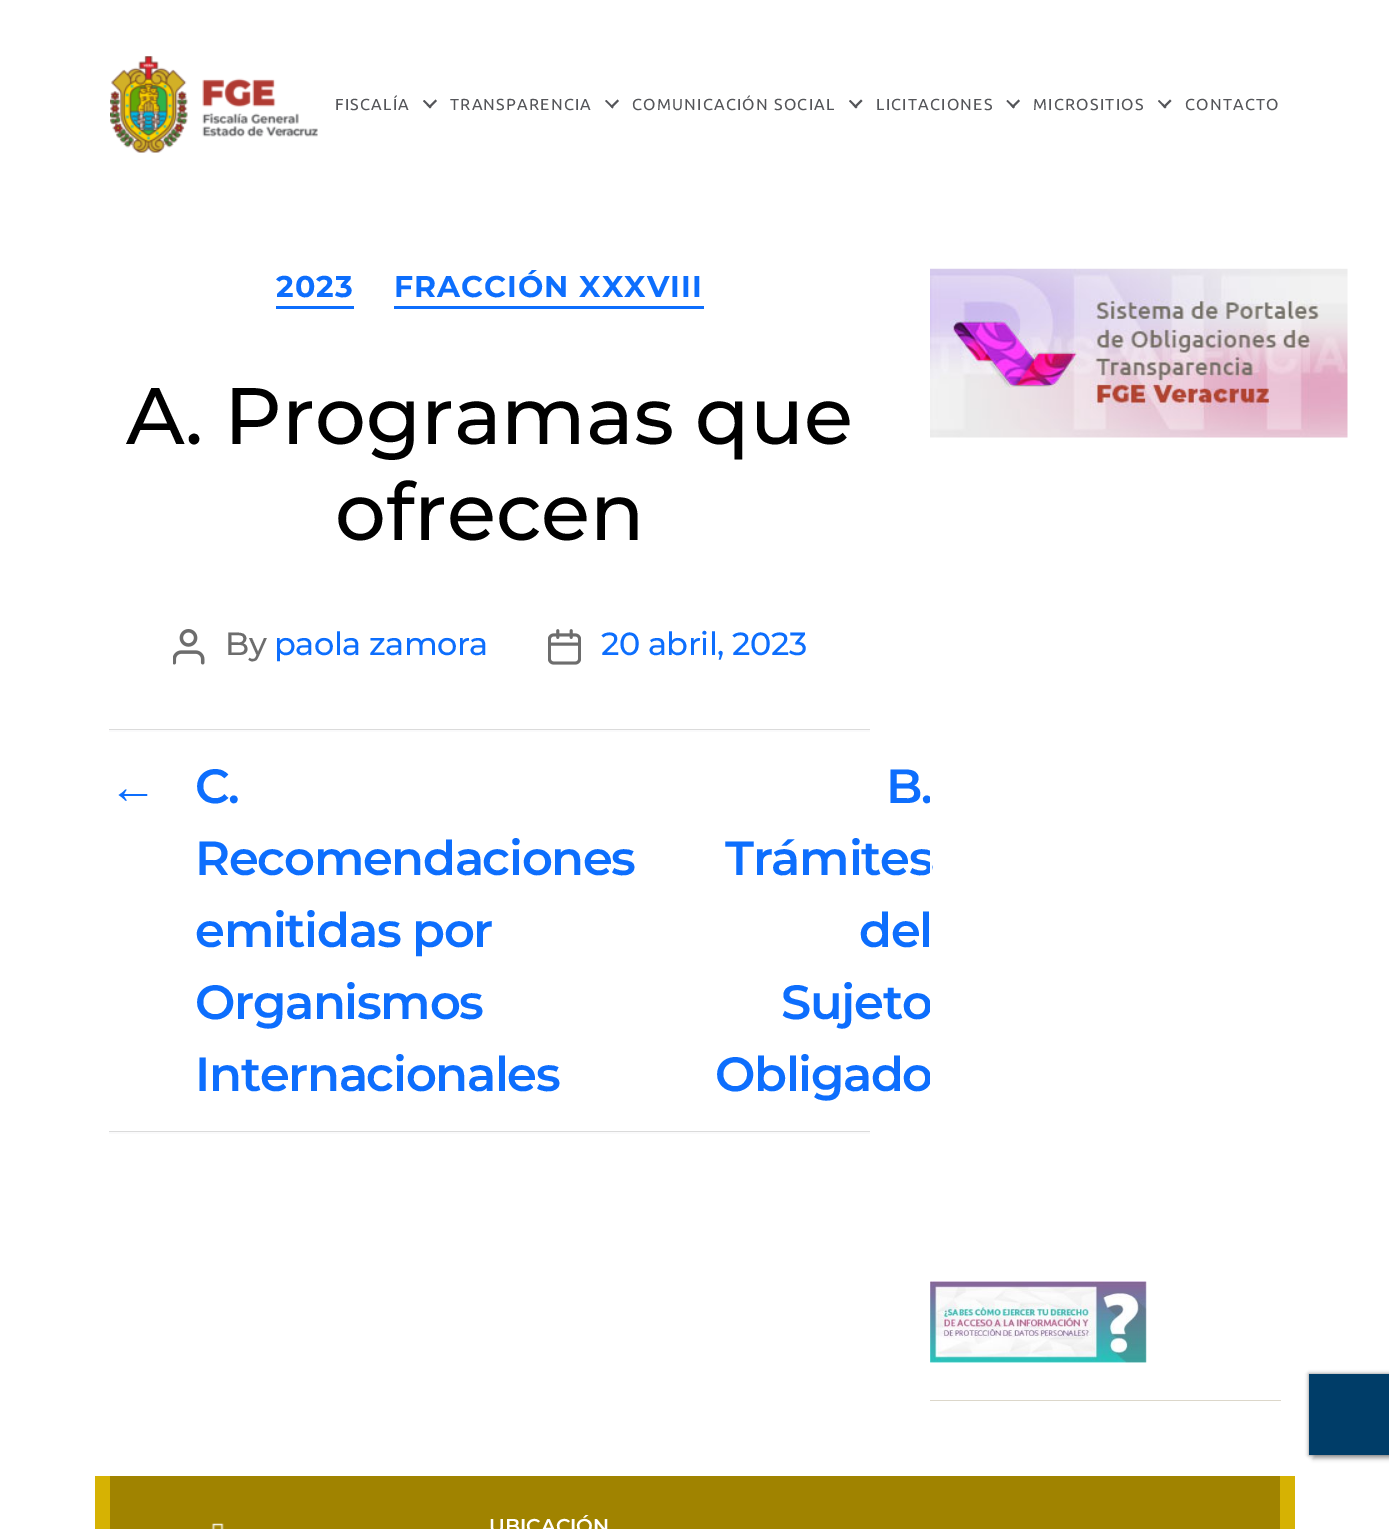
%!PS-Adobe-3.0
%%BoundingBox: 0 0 1389 1529
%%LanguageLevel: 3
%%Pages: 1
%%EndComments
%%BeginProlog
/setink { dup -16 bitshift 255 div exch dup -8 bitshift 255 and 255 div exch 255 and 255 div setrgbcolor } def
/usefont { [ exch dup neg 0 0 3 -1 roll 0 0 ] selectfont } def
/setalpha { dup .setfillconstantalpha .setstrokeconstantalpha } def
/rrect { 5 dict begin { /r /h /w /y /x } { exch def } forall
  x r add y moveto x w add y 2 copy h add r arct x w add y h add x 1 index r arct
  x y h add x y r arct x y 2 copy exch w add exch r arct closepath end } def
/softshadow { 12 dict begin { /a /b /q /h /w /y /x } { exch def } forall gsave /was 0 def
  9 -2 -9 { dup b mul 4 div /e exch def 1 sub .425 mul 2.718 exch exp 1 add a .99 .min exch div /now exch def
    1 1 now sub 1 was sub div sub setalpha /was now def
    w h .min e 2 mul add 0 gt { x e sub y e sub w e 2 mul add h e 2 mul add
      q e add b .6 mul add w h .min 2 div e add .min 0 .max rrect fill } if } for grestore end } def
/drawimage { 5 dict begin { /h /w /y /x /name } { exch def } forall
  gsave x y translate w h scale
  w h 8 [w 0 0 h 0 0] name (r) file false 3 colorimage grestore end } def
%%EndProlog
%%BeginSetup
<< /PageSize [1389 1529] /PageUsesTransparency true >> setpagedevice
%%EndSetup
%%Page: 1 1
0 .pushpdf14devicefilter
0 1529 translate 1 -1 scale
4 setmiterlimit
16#FFFFFF setink
0 0 1389 1529 rectfill
(img1.raw) 110 56 208 97 drawimage
/Ubuntu-Regular 16 usefont
16#545559 setink
335 110 moveto 1.25 0 (FISCALÍA) ashow
423 101 moveto 424.5 100 lineto 431.5 107 lineto 430 108.5 lineto closepath fill
428.5 106.5 moveto 435.5 99.5 lineto 437 101 lineto 430 108 lineto closepath fill
450 110 moveto 1.25 0 (TRANSPARENCIA) ashow
605 101 moveto 606.5 100 lineto 613.5 107 lineto 612.5 108.5 lineto closepath fill
610.5 106.5 moveto 617.5 99.5 lineto 619 101 lineto 612 108 lineto closepath fill
632 110 moveto 1.25 0 (COMUNICACIÓN SOCIAL) ashow
849 101 moveto 850.5 100 lineto 857.5 107 lineto 856 108.5 lineto closepath fill
854 106.5 moveto 861 99.5 lineto 862.5 101 lineto 855.5 108 lineto closepath fill
876 110 moveto 1.25 0 (LICITACIONES) ashow
1006.5 101 moveto 1007.5 100 lineto 1015 107 lineto 1013.5 108.5 lineto closepath fill
1011.5 106.5 moveto 1018.5 99.5 lineto 1020 101 lineto 1013 108 lineto closepath fill
1033 110 moveto 1.25 0 (MICROSITIOS) ashow
1158 101 moveto 1159 100 lineto 1166.5 107 lineto 1165 108.5 lineto closepath fill
1163 106.5 moveto 1170 99.5 lineto 1171.5 101 lineto 1164.5 108 lineto closepath fill
1185 110 moveto 1.25 0 (CONTACTO) ashow
16#0D6EFD setink
276 306 78 3 rectfill
/Montserrat-Bold 30 usefont
276 297 moveto 1.1 0 (2023) ashow
394 306 310 3 rectfill
394 297 moveto 1.1 0 (FRACCIÓN XXXVIII) ashow
/Montserrat-Medium 80 usefont
16#000000 setink
126 444 moveto (A. Programas que) show
335 540 moveto (ofrecen) show
(img2.raw) 173 629 32 36 drawimage
/Montserrat-Medium 32 usefont
16#6D6D6D setink
225 655 moveto -0.5 0 (By) ashow
16#0D6EFD setink
274 655 moveto -0.5 0 (paola zamora) ashow
(img3.raw) 548 629 33 36 drawimage
601 655 moveto -0.5 0 (20 abril, 2023) ashow
16#FAFAFB setink
109 730 761 2 rectfill
16#DBDBDB setink
109 729 761 1 rectfill
/LiberationSans-Bold 48 usefont
16#0D6EFD setink
109 803 moveto -1.3 0 (←) ashow
/Montserrat-SemiBold 48 usefont
195 803 moveto -1.3 0 (C.) ashow
195 875 moveto -1.3 0 (Recomendaciones) ashow
195 947 moveto -1.3 0 (emitidas por) ashow
195 1019 moveto -1.3 0 (Organismos) ashow
195 1091 moveto -1.3 0 (Internacionales) ashow
886 803 moveto -1.3 0 (B.) ashow
725 875 moveto -1.3 0 (Trámites) ashow
859 947 moveto -1.3 0 (del) ashow
781 1019 moveto -1.3 0 (Sujeto) ashow
715 1091 moveto -1.3 0 (Obligado) ashow
[
    [109 1132 761 2 16#FAFAFB]
    [109 1131 761 1 16#DBDBDB]
    [930 796 2 288 16#FFFFFF]
    [930 1400 351 1 16#DCD7CA]
] { aload pop setink rectfill } forall
(img4.raw) 930 268 418 170 drawimage
(img5.raw) 930 1281 217 82 drawimage
16#000000 setink
1313 1378 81 81 0 2 0.25 softshadow
1309 1374 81 81 0 2 0.5 softshadow
[
    [1309 1374 80 81 16#003D68]
    [95 1476 1200 53 16#D6B203]
    [110 1476 1170 53 16#A08300]
] { aload pop setink rectfill } forall
(img6.raw) 211 1523 13 6 drawimage
/Montserrat-SemiBold 20 usefont
16#FFFFFF setink
489 1533 moveto (UBICACIÓN) show
.poppdf14devicefilter showpage
%%EOF
